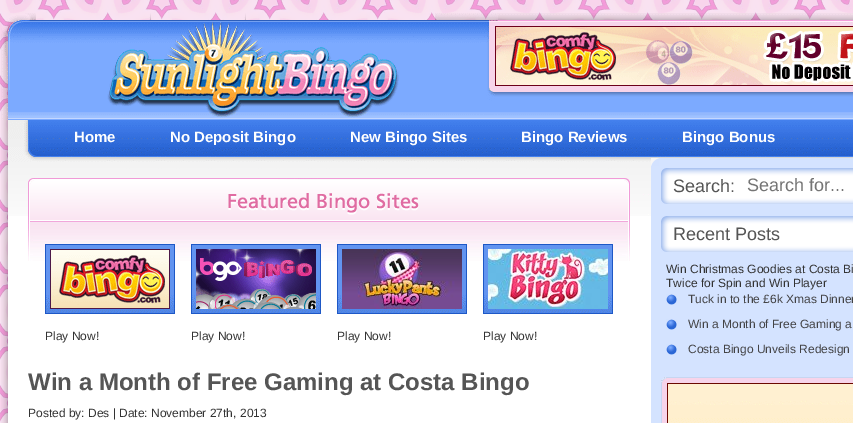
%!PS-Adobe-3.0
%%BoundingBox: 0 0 853 423
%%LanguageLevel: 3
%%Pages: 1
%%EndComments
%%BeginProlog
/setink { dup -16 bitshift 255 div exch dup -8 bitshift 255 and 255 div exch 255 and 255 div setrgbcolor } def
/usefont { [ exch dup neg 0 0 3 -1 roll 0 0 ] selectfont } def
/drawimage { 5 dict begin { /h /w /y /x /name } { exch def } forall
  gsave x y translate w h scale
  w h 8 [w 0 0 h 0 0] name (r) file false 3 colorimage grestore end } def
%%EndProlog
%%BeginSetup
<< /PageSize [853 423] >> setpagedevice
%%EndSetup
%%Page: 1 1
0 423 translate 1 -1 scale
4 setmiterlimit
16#FFFFFF setink
0 0 853 423 rectfill
(img1.raw) 0 0 853 423 drawimage
(img2.raw) 1 13 852 107 drawimage
(img3.raw) 495 26 358 60 drawimage
(img4.raw) 1 120 650 303 drawimage
(img5.raw) 8 120 845 96 drawimage
/LiberationSans-Bold 15 usefont
[
    [(Home) 74 142]
    [(No Deposit Bingo) 170 142]
    [(New Bingo Sites) 350 142]
    [(Bingo Reviews) 521 142]
    [(Bingo Bonus) 682 142]
] { aload pop moveto show } forall
16#D4E3FF setink
651 158 202 265 rectfill
(img6.raw) 651 158 8 8 drawimage
(img7.raw) 661 168 192 36 drawimage
/LiberationSans-Regular 18 usefont
16#555555 setink
673 192 moveto (Search:) show
16#757575 setink
747 191 moveto (Search for...) show
(img7.raw) 661 216 192 36 drawimage
16#555555 setink
673 240 moveto (Recent Posts) show
/LiberationSans-Regular 12 usefont
16#333333 setink
666 273 moveto (Win Christmas Goodies at Costa Bi) show
666 287 moveto (Twice for Spin and Win Player) show
(img8.raw) 666 294 11 11 drawimage
16#434345 setink
688 303 moveto (Tuck in to the £6k Xmas Dinner) show
(img8.raw) 666 319 11 11 drawimage
688 328 moveto (Win a Month of Free Gaming a) show
(img8.raw) 666 344 11 11 drawimage
688 353 moveto (Costa Bingo Unveils Redesign) show
(img9.raw) 661 377 192 46 drawimage
(img10.raw) 667 383 186 40 drawimage
/LiberationSans-Bold 24 usefont
16#555555 setink
28 390 moveto (Win a Month of Free Gaming at Costa Bingo) show
/LiberationSans-Regular 12 usefont
16#333333 setink
28 417 moveto (Posted by: Des | Date: November 27th, 2013) show
(img11.raw) 28 178 602 83 drawimage
(img12.raw) 45 244 130 70 drawimage
(img13.raw) 50 249 120 60 drawimage
45 340 moveto (Play Now!) show
(img12.raw) 191 244 130 70 drawimage
(img14.raw) 196 249 120 60 drawimage
191 340 moveto (Play Now!) show
(img12.raw) 337 244 130 70 drawimage
(img15.raw) 342 249 120 60 drawimage
337 340 moveto (Play Now!) show
(img12.raw) 483 244 130 70 drawimage
(img16.raw) 488 249 120 60 drawimage
483 340 moveto (Play Now!) show
showpage
%%EOF
